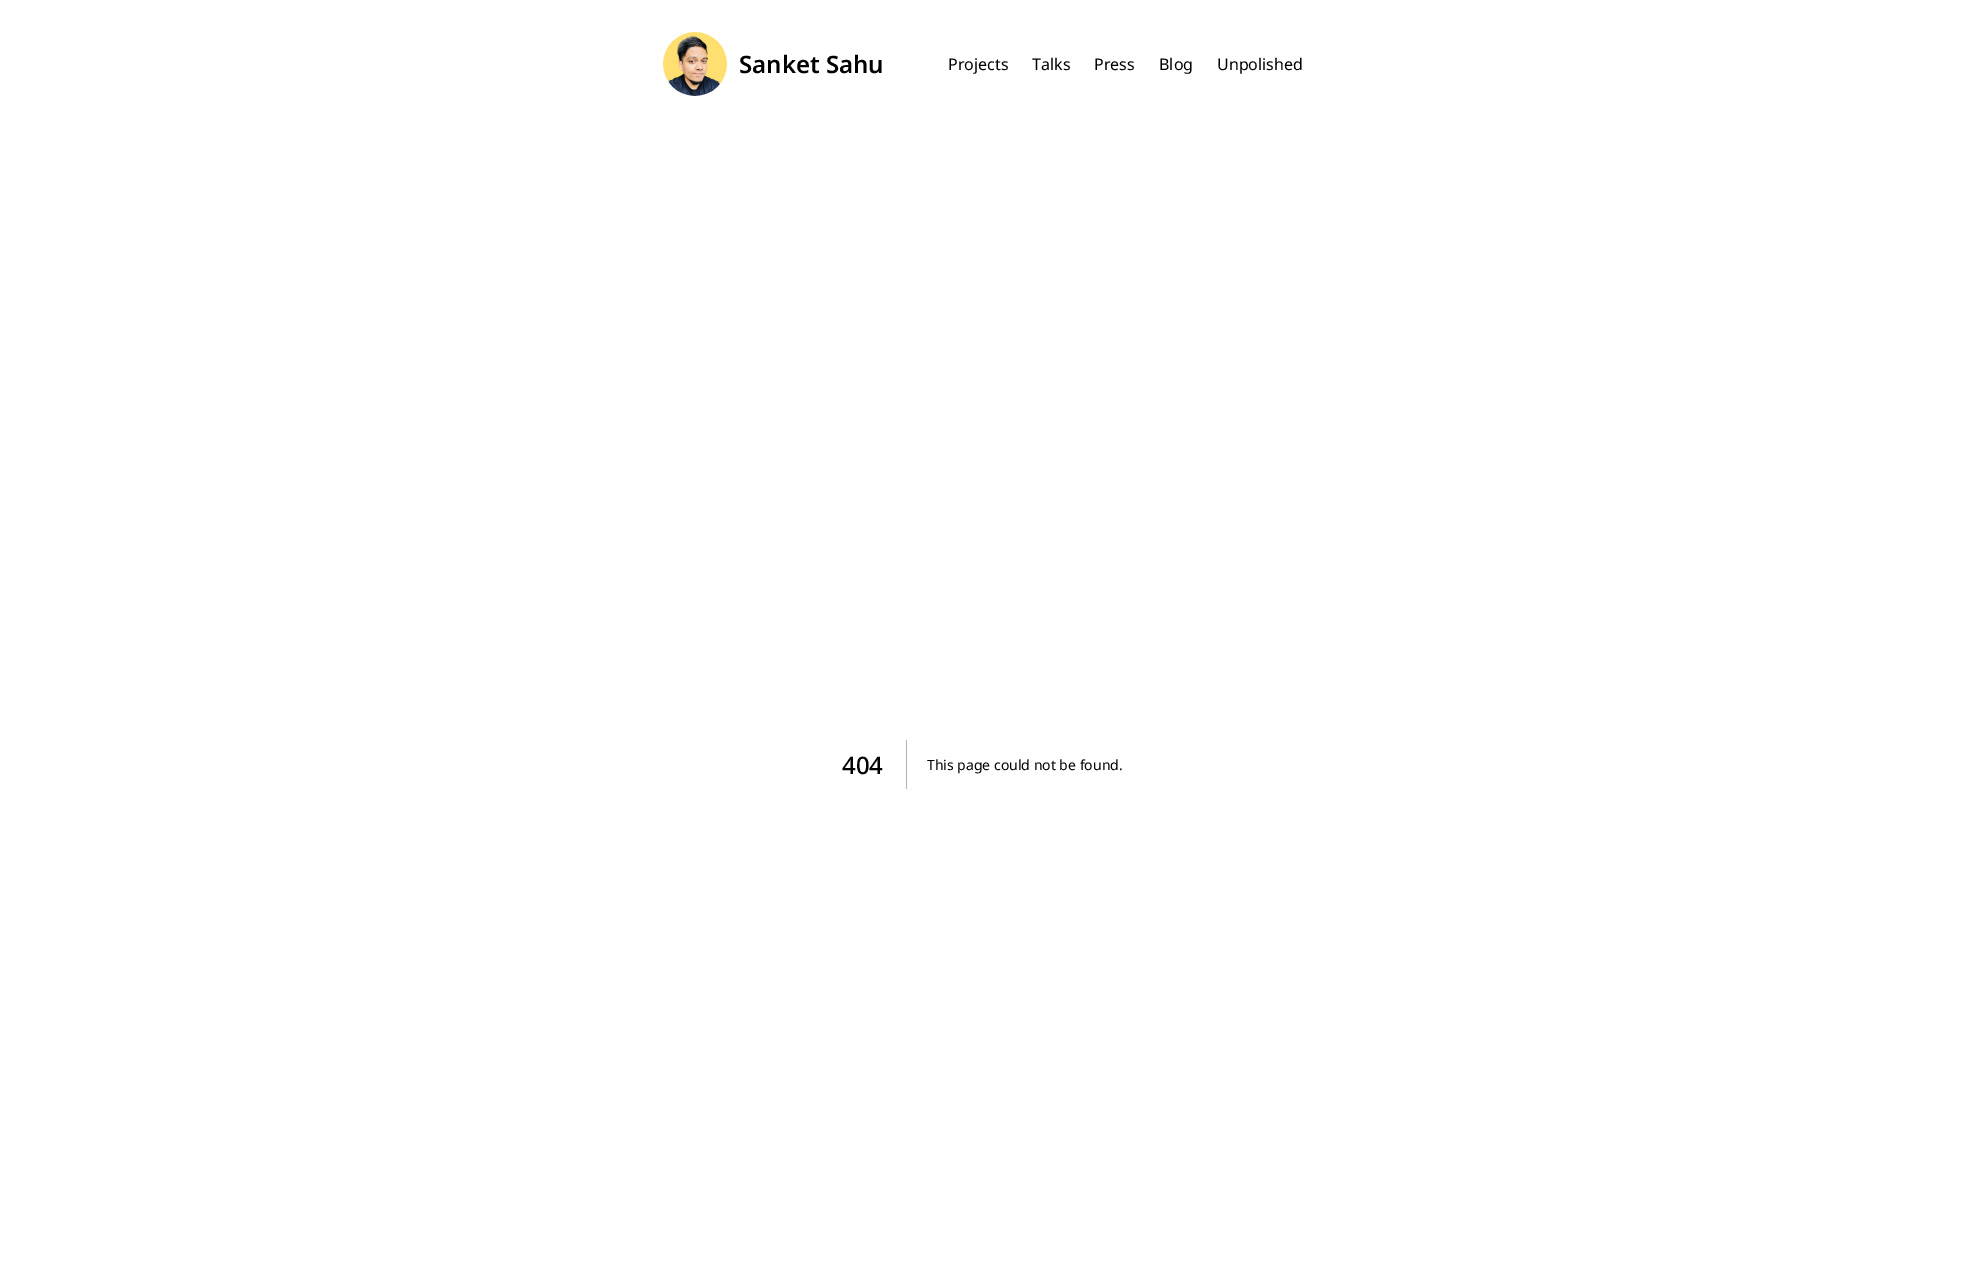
%!PS-Adobe-3.0
%%BoundingBox: 0 0 1965 1273
%%LanguageLevel: 3
%%Pages: 1
%%EndComments
%%BeginProlog
/setink { dup -16 bitshift 255 div exch dup -8 bitshift 255 and 255 div exch 255 and 255 div setrgbcolor } def
/usefont { [ exch dup neg 0 0 3 -1 roll 0 0 ] selectfont } def
/drawimage { 5 dict begin { /h /w /y /x /name } { exch def } forall
  gsave x y translate w h scale
  w h 8 [w 0 0 h 0 0] name (r) file false 3 colorimage grestore end } def
%%EndProlog
%%BeginSetup
<< /PageSize [1965 1273] >> setpagedevice
%%EndSetup
%%Page: 1 1
0 1273 translate 1 -1 scale
4 setmiterlimit
16#FFFFFF setink
0 0 1965 1273 rectfill
(img1.raw) 663 32 64 64 drawimage
/NotoSans-SemiBold 24 usefont
16#000000 setink
739 73 moveto (Sanket Sahu) show
/NotoSans-Regular 16 usefont
[
    [(Projects) 948 70]
    [(Talks) 1032 70]
    [(Press) 1094 70]
    [(Blog) 1159 70]
    [(Unpolished) 1217 70]
] { aload pop moveto show } forall
16#B3B3B3 setink
906 740 1 49 rectfill
/NotoSans-Medium 24 usefont
16#000000 setink
842 774 moveto (404) show
/NotoSans-Regular 14 usefont
927 770 moveto (This page could not be found.) show
showpage
%%EOF
